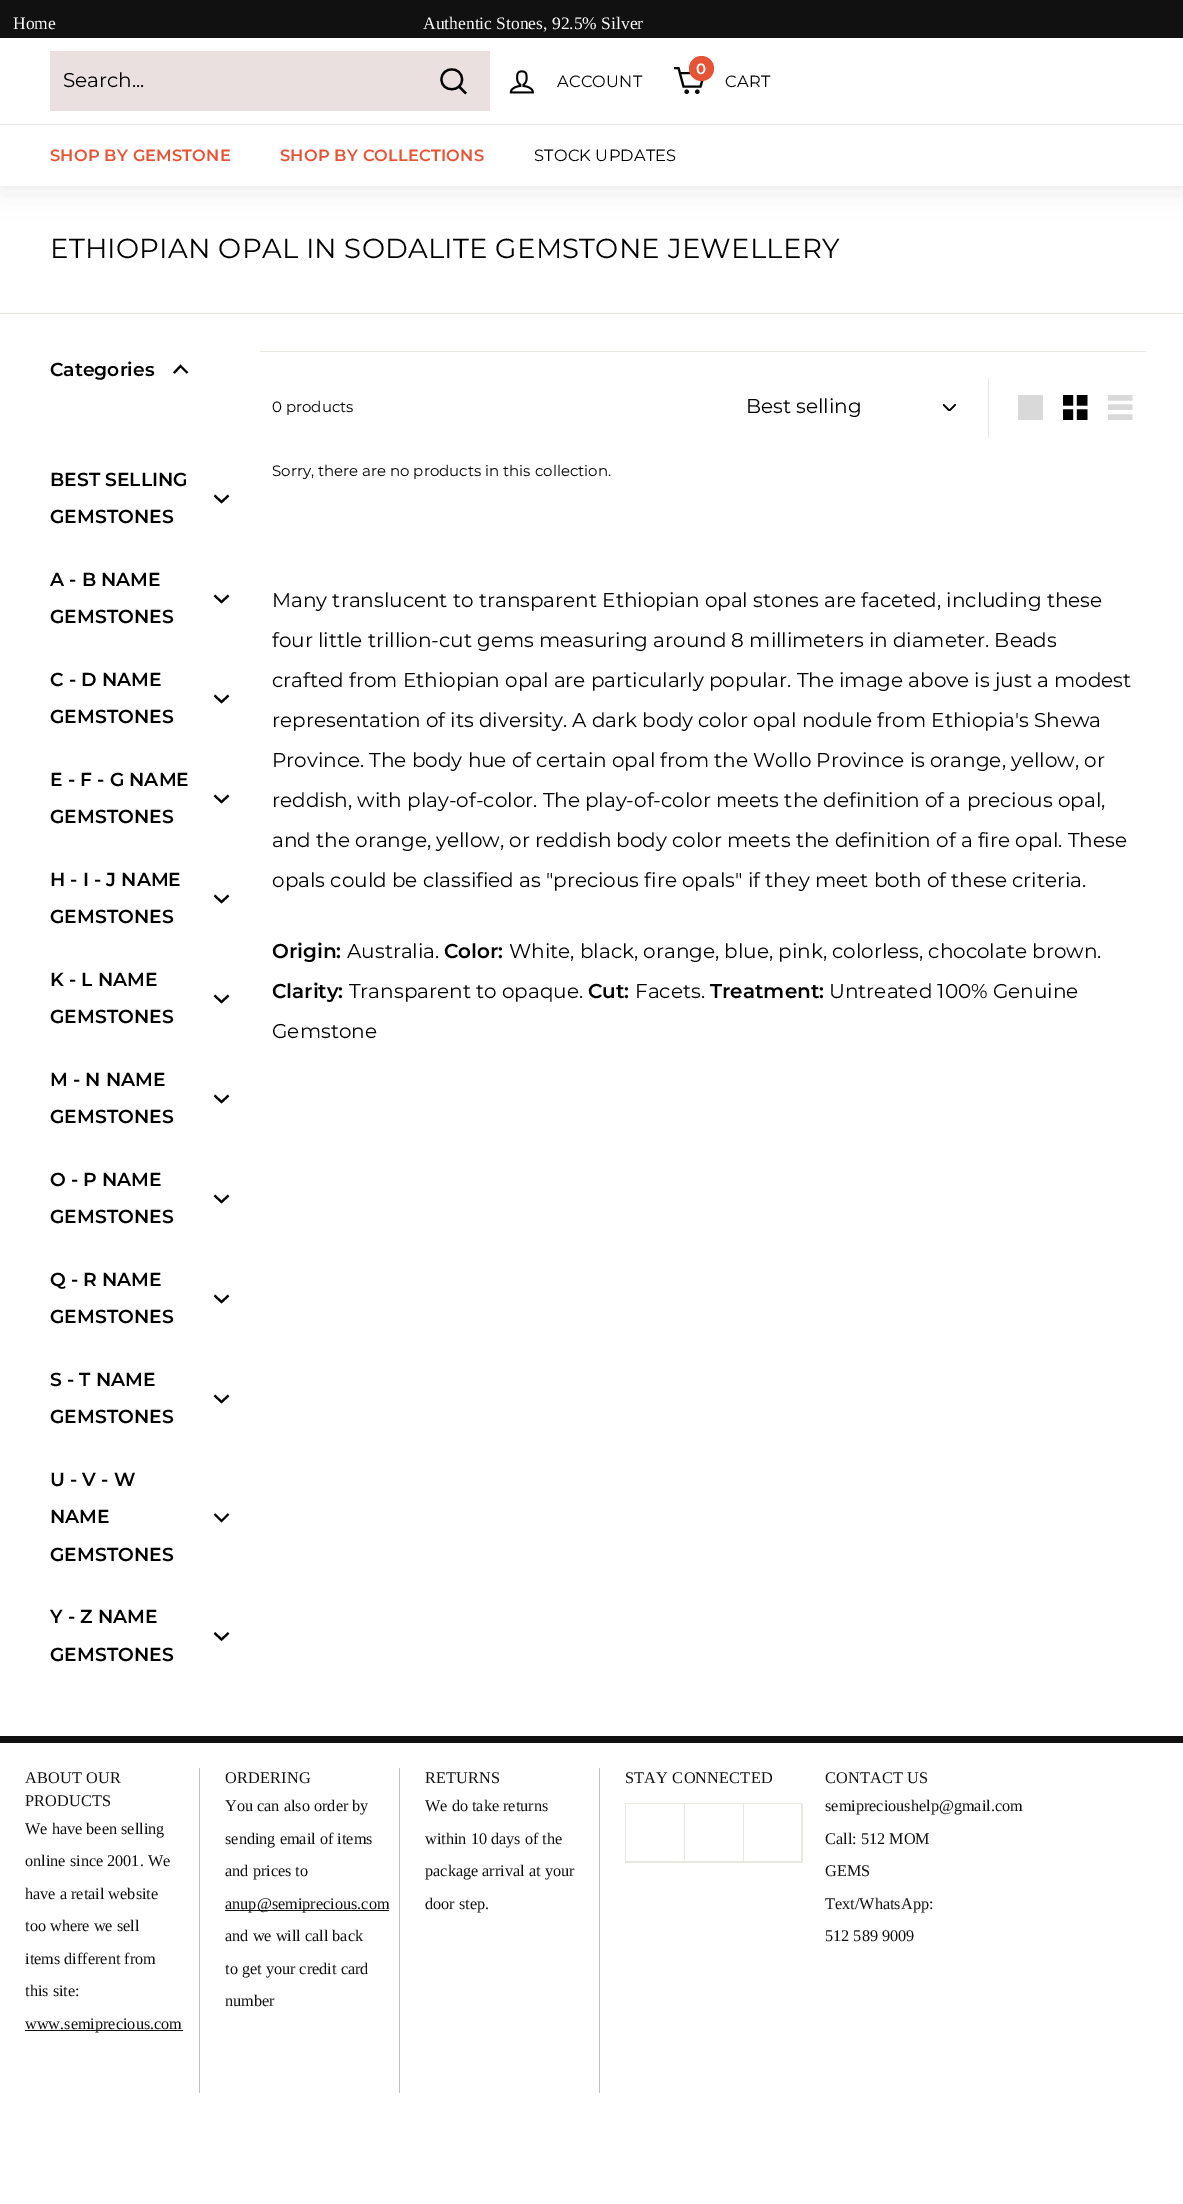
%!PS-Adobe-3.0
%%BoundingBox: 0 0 1183 2204
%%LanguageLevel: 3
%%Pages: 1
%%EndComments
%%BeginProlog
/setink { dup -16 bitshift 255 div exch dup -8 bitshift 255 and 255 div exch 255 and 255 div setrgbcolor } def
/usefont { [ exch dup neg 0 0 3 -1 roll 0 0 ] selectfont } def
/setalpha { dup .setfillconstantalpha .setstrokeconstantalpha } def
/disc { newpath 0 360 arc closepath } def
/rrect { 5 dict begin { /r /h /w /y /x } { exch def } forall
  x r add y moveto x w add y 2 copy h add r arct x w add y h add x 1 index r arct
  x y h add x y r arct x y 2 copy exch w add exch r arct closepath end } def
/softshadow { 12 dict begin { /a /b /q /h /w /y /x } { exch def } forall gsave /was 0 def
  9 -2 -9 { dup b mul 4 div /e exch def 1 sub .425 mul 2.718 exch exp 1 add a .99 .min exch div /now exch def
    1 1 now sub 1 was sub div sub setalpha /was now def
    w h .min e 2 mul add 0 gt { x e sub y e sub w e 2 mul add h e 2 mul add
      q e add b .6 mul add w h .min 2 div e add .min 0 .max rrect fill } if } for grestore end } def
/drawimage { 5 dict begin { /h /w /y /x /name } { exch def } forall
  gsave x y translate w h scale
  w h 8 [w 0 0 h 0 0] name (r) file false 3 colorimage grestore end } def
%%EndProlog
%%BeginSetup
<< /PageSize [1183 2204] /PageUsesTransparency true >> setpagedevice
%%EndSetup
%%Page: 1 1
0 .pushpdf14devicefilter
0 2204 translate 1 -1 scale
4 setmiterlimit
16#FFFFFF setink
0 0 1183 2204 rectfill
16#111111 setink
0 0 1183 38 rectfill
/LiberationSerif-Regular 17.5 usefont
16#FFFFFF setink
13 29 moveto (Home) show
423 29 moveto (Authentic Stones, 92.5% Silver) show
16#000000 setink
0 38 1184 86 0 15.5 0.1 softshadow
0 124 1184 62 0 15.5 0.1 softshadow
16#FFFFFF setink
0 38 1183 86 rectfill
16#E9E0DF setink
50 51 440 60 rectfill
/Montserrat-Regular 20 usefont
16#000000 setink
63 87 moveto (Search...) show
2.2 setlinewidth
462 79.5 moveto 462 92.5 441.5 92.5 441.5 79.5 curveto 441.5 66 462 66 462 79.5 curveto closepath 466 93.5 moveto 459 86.5 lineto stroke
(img1.raw) 509 70 25 24 drawimage
/Montserrat-Regular 16.25 usefont
557 87 moveto 0.2 0 (ACCOUNT) ashow
2.1 setlinewidth
680 73 moveto 704.5 73 lineto 700.5 86.5 lineto 683.5 86.5 lineto 678.5 68 lineto 674 68 lineto stroke
16#E65438 setink
701.5 68.5 12.5 disc fill
/Montserrat-SemiBold 15 usefont
16#FFFFFF setink
696 74 moveto (0) show
16#000000 setink
686.7 91.7 1.1 disc stroke
697.3 91.7 1.1 disc stroke
/Montserrat-Regular 16.25 usefont
725 87 moveto 0.2 0 (CART) ashow
16#FFFFFF setink
0 125 1183 61 rectfill
16#E6E6E6 setink
0 124 1183 1 rectfill
/Montserrat-SemiBold 16.25 usefont
16#E65438 setink
50 161 moveto 0.2 0 (SHOP BY GEMSTONE) ashow
280 161 moveto 0.2 0 (SHOP BY COLLECTIONS) ashow
/Montserrat-Regular 16.25 usefont
16#000000 setink
534 161 moveto 0.2 0 (STOCK UPDATES) ashow
/Montserrat-Regular 27.5 usefont
50 258 moveto 0.3 0 (ETHIOPIAN OPAL IN SODALITE GEMSTONE JEWELLERY) ashow
16#E8E8E1 setink
0 313 1183 1 rectfill
/Montserrat-SemiBold 18.75 usefont
16#000000 setink
50 376 moveto (Categories) show
187.5 373 moveto 180.5 366 lineto 174 373 lineto stroke
50 486 moveto (BEST SELLING) show
50 523 moveto (GEMSTONES) show
214.5 495.5 moveto 221.5 502 lineto 228.5 495.5 lineto stroke
50 586 moveto (A - B NAME) show
50 623 moveto (GEMSTONES) show
214.5 595.5 moveto 221.5 602 lineto 228.5 595.5 lineto stroke
50 686 moveto (C - D NAME) show
50 723 moveto (GEMSTONES) show
214.5 695.5 moveto 221.5 702 lineto 228.5 695.5 lineto stroke
50 786 moveto (E - F - G NAME) show
50 823 moveto (GEMSTONES) show
214.5 795.5 moveto 221.5 802 lineto 228.5 795.5 lineto stroke
50 886 moveto (H - I - J NAME) show
50 923 moveto (GEMSTONES) show
214.5 895.5 moveto 221.5 902 lineto 228.5 895.5 lineto stroke
50 986 moveto (K - L NAME) show
50 1023 moveto (GEMSTONES) show
214.5 995.5 moveto 221.5 1002 lineto 228.5 995.5 lineto stroke
50 1086 moveto (M - N NAME) show
50 1123 moveto (GEMSTONES) show
214.5 1095.5 moveto 221.5 1102 lineto 228.5 1095.5 lineto stroke
50 1186 moveto (O - P NAME) show
50 1223 moveto (GEMSTONES) show
214.5 1195.5 moveto 221.5 1202 lineto 228.5 1195.5 lineto stroke
50 1286 moveto (Q - R NAME) show
50 1323 moveto (GEMSTONES) show
214.5 1295.5 moveto 221.5 1302 lineto 228.5 1295.5 lineto stroke
50 1386 moveto (S - T NAME) show
50 1423 moveto (GEMSTONES) show
214.5 1395.5 moveto 221.5 1402 lineto 228.5 1395.5 lineto stroke
[
    [(U - V - W) 50 1486]
    [(NAME) 50 1523]
    [(GEMSTONES) 50 1561]
] { aload pop moveto show } forall
214.5 1514 moveto 221.5 1521 lineto 228.5 1514 lineto stroke
50 1623 moveto (Y - Z NAME) show
50 1661 moveto (GEMSTONES) show
214.5 1633 moveto 221.5 1639.5 lineto 228.5 1633 lineto stroke
16#E8E8E1 setink
260 351 886 1 rectfill
/Montserrat-Regular 15 usefont
16#000000 setink
272 412 moveto (0 products) show
16#E8E8E1 setink
988 378 1 60 rectfill
(img2.raw) 943 404 13 7 drawimage
/Montserrat-Regular 20 usefont
16#000000 setink
746 413 moveto (Best selling) show
16#D9D9D9 setink
1018 395 25 25 rectfill
(img3.raw) 1063 395 25 25 drawimage
(img4.raw) 1108 395 25 25 drawimage
/Montserrat-Regular 15 usefont
16#000000 setink
272 476 moveto (Sorry, there are no products in this collection.) show
/Montserrat-Regular 20 usefont
[
    [(Many translucent to transparent Ethiopian opal stones are faceted, including these) 272 607]
    [(four little trillion-cut gems measuring around 8 millimeters in diameter. Beads) 272 647]
    [(crafted from Ethiopian opal are particularly popular. The image above is just a modest) 272 687]
    [(representation of its diversity. A dark body color opal nodule from Ethiopia's Shewa) 272 727]
    [(Province. The body hue of certain opal from the Wollo Province is orange, yellow, or) 272 767]
    [(reddish, with play-of-color. The play-of-color meets the definition of a precious opal,) 272 807]
    [(and the orange, yellow, or reddish body color meets the definition of a fire opal. These) 272 847]
    [(opals could be classified as "precious fire opals" if they meet both of these criteria.) 272 887]
] { aload pop moveto show } forall
/Montserrat-SemiBold 20 usefont
272 958 moveto (Origin:) show
/Montserrat-Regular 20 usefont
347 958 moveto (Australia.) show
/Montserrat-SemiBold 20 usefont
444 958 moveto (Color:) show
/Montserrat-Regular 20 usefont
509 958 moveto (White, black, orange, blue, pink, colorless, chocolate brown.) show
/Montserrat-SemiBold 20 usefont
272 998 moveto (Clarity:) show
/Montserrat-Regular 20 usefont
349 998 moveto (Transparent to opaque.) show
/Montserrat-SemiBold 20 usefont
588 998 moveto (Cut:) show
/Montserrat-Regular 20 usefont
635 998 moveto (Facets.) show
/Montserrat-SemiBold 20 usefont
710 998 moveto (Treatment:) show
/Montserrat-Regular 20 usefont
829 998 moveto (Untreated 100% Genuine) show
272 1038 moveto (Gemstone) show
16#111111 setink
0 1736 1183 7 rectfill
16#BEBEBE setink
199 1768 1 325 rectfill
/LiberationSerif-Regular 16.25 usefont
16#111111 setink
25 1783 moveto 0.2 0 (ABOUT OUR) ashow
25 1806 moveto 0.2 0 (PRODUCTS) ashow
[
    [(We have been selling) 25 1834]
    [(online since 2001. We) 25 1866]
    [(have a retail website) 25 1899]
    [(too where we sell) 25 1931]
    [(items different from) 25 1964]
    [(this site:) 25 1996]
] { aload pop moveto show } forall
25 2030 158 1 rectfill
25 2029 moveto (www.semiprecious.com) show
16#BEBEBE setink
399 1768 1 325 rectfill
16#111111 setink
225 1783 moveto 0.2 0 (ORDERING) ashow
[
    [(You can also order by) 225 1811]
    [(sending email of items) 225 1844]
    [(and prices to) 225 1876]
] { aload pop moveto show } forall
225 1910 164 1 rectfill
[
    [(anup@semiprecious.com) 225 1909]
    [(and we will call back) 225 1941]
    [(to get your credit card) 225 1974]
    [(number) 225 2006]
] { aload pop moveto show } forall
16#BEBEBE setink
599 1768 1 325 rectfill
16#111111 setink
425 1783 moveto 0.2 0 (RETURNS) ashow
[
    [(We do take returns) 425 1811]
    [(within 10 days of the) 425 1844]
    [(package arrival at your) 425 1876]
    [(door step.) 425 1909]
] { aload pop moveto show } forall
625 1783 moveto 0.2 0 (STAY CONNECTED) ashow
[
    [625 1803 178 60 16#E8E8E1]
    [626 1804 58 57 16#FFFFFF]
    [685 1804 58 57 16#FFFFFF]
    [744 1804 57 57 16#FFFFFF]
] { aload pop setink rectfill } forall
16#111111 setink
825 1783 moveto 0.2 0 (CONTACT US) ashow
[
    [(semiprecioushelp@gmail.com) 825 1811]
    [(Call: 512 MOM) 825 1844]
    [(GEMS) 825 1876]
    [(Text/WhatsApp:) 825 1909]
    [(512 589 9009) 825 1941]
] { aload pop moveto show } forall
.poppdf14devicefilter showpage
%%EOF
